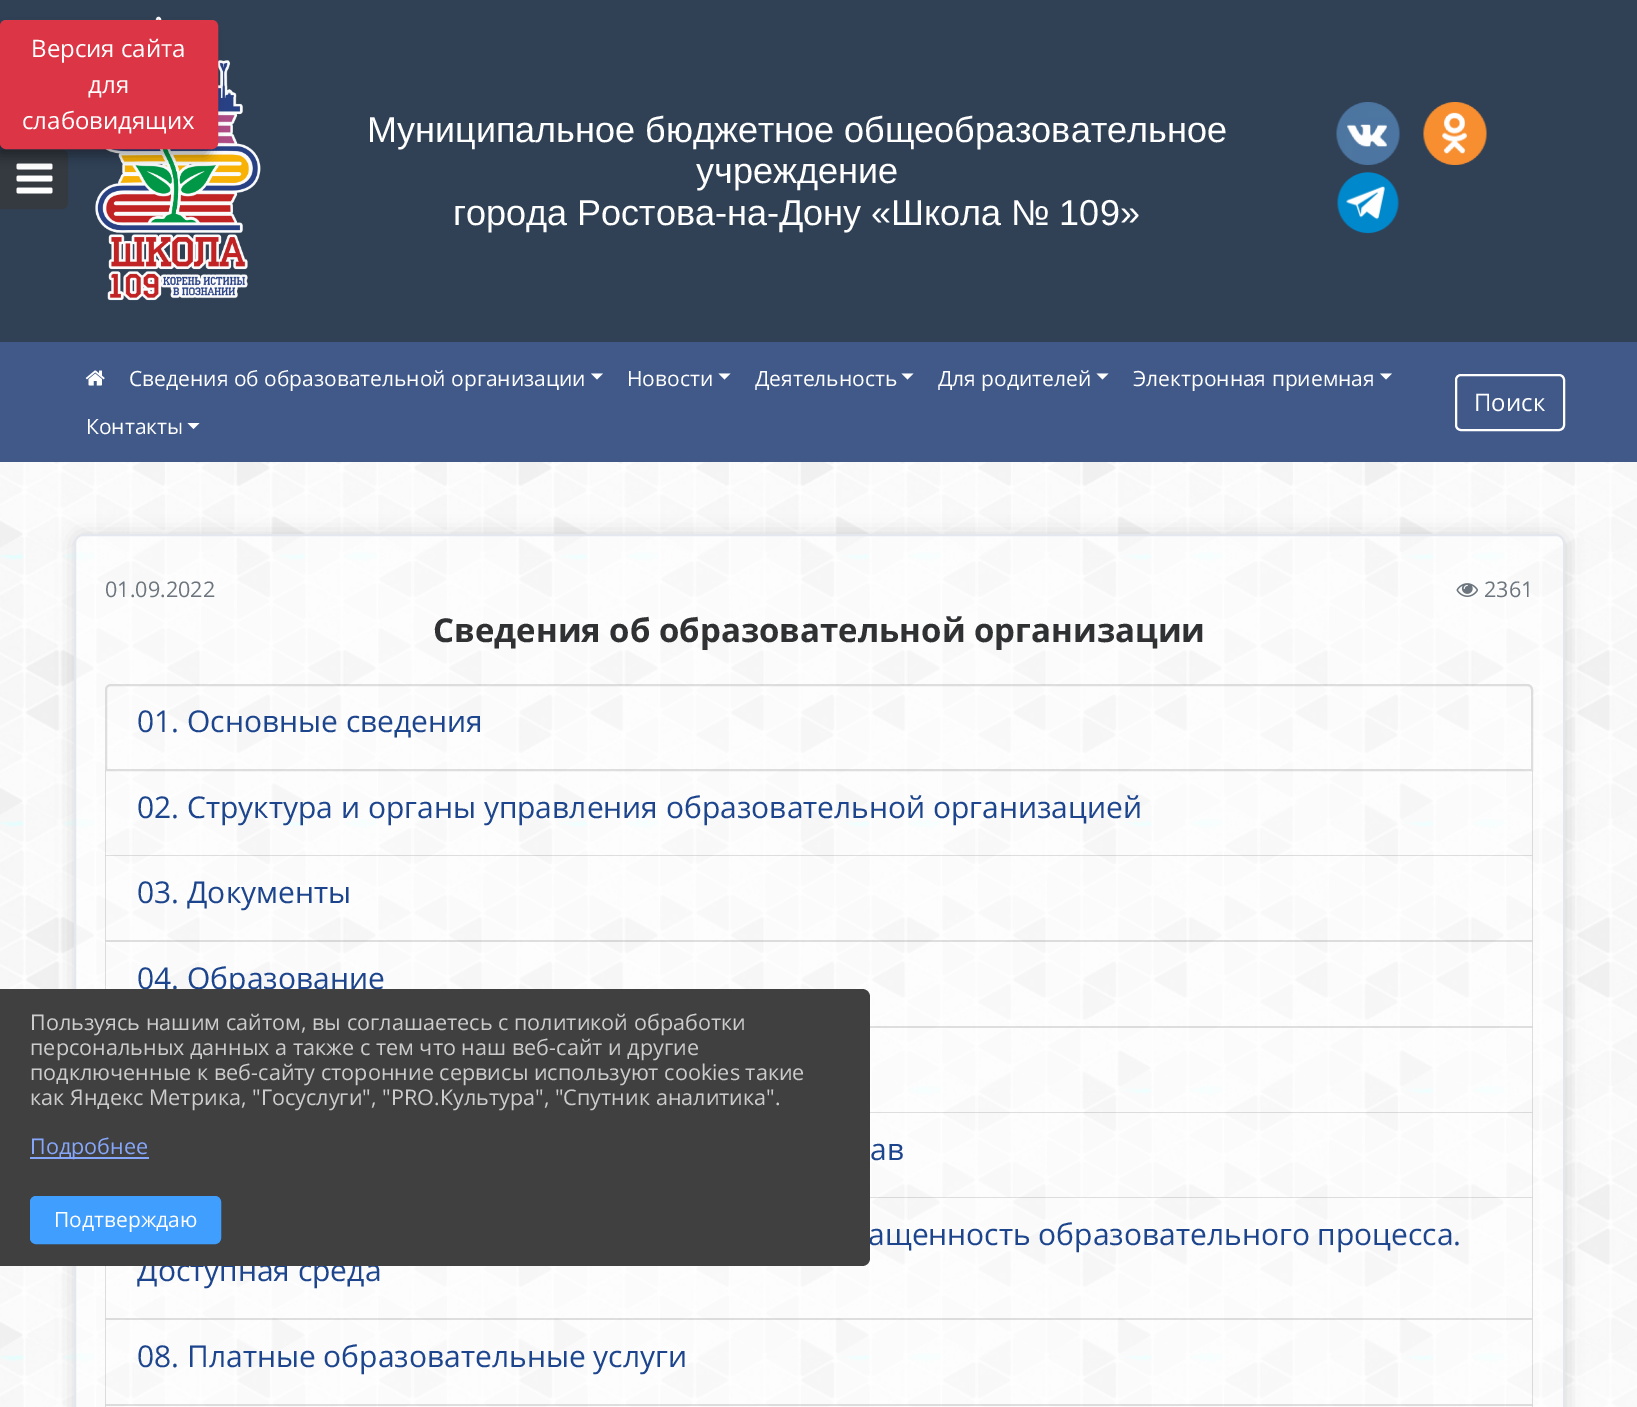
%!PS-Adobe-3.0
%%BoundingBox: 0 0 1637 1407
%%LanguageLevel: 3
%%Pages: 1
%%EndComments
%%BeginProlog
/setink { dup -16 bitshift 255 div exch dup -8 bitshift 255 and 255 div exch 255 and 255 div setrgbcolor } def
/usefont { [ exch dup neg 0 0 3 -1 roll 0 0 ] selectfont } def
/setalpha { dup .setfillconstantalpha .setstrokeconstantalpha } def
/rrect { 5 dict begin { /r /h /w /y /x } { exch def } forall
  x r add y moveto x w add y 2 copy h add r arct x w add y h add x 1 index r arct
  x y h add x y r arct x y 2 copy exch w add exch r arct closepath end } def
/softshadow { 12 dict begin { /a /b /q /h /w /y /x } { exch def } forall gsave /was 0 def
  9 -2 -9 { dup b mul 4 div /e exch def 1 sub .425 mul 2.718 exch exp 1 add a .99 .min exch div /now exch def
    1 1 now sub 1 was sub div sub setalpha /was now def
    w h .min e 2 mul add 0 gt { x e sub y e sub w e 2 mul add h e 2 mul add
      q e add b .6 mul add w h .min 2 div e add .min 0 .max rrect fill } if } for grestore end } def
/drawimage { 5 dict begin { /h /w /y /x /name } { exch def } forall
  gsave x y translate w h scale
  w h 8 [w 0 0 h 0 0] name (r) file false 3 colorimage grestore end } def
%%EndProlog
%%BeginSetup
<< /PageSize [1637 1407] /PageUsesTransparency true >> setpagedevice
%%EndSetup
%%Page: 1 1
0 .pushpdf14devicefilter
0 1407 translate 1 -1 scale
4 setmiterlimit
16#FFFFFF setink
0 0 1637 1407 rectfill
(img1.raw) 0 462 1637 945 drawimage
16#304156 setink
0 0 1637 342 rectfill
16#343A40 setink
1 151 moveto 62 151 lineto 65 151 67 153 67 156 curveto 67 203 lineto 67 206 65 208 62 208 curveto 1 208 lineto closepath gsave fill grestore
2 setlinewidth
stroke
(img2.raw) 16 163 37 31 drawimage
(img3.raw) 95 16 166 285 drawimage
16#000000 setink
-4 30 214 126 5 6 0.35 softshadow
16#DC3545 setink
1 21 216 127 5 rrect gsave fill grestore
stroke
/OpenSans-Regular 24 usefont
16#FFFFFF setink
[
    [(Версия сайта) 31 57]
    [(для) 88 93]
    [(слабовидящих) 22 129]
] { aload pop moveto show } forall
/LiberationSans-Regular 36 usefont
[
    [(Муниципальное бюджетное общеобразовательное) 367 142]
    [(учреждение) 696 183]
    [(города Ростова-на-Дону «Школа № 109») 453 225]
] { aload pop moveto show } forall
(img4.raw) 1336 102 64 63 drawimage
(img5.raw) 1423 102 64 63 drawimage
(img6.raw) 1337 172 62 62 drawimage
16#405988 setink
0 342 1637 120 rectfill
(img7.raw) 85 370 20 16 drawimage
/OpenSans-Regular 21 usefont
16#FFFFFF setink
129 386 moveto (Сведения об образовательной организации) show
591 373.5 moveto 603 373.5 lineto 597 379.5 lineto closepath fill
627 386 moveto (Новости) show
718.5 373.5 moveto 730.5 373.5 lineto 724.5 379.5 lineto closepath fill
755 386 moveto (Деятельность) show
901.5 373.5 moveto 913.5 373.5 lineto 907.5 379.5 lineto closepath fill
938 386 moveto (Для родителей) show
1096.5 373.5 moveto 1108.5 373.5 lineto 1102.5 379.5 lineto closepath fill
1133 386 moveto (Электронная приемная) show
1380 373.5 moveto 1392 373.5 lineto 1386 379.5 lineto closepath fill
86 434 moveto (Контакты) show
187.5 423 moveto 199.5 423 lineto 193.5 429 lineto closepath fill
1456 375 108 55 5 rrect stroke
/OpenSans-Regular 24 usefont
1474 411 moveto (Поиск) show
gsave
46 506 moveto 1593 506 lineto 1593 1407 lineto 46 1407 lineto closepath 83 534 moveto 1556 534 lineto 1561 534 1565 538 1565 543 curveto 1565 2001 lineto 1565 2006 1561 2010 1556 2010 curveto 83 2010 lineto 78 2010 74 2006 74 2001 curveto 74 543 lineto 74 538 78 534 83 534 curveto closepath eoclip newpath
16#000000 setink
74 534 1491 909 9 9 0.12 softshadow
grestore
0.4 setalpha
83 534 moveto 1556 534 lineto 1561 534 1565 538 1565 543 curveto 1565 1407 lineto 74 1407 lineto 74 543 lineto 74 538 78 534 83 534 curveto closepath fill
1 setalpha
16#E4E7ED setink
75 535 1489 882 8 rrect stroke
/OpenSans-Regular 21.6 usefont
16#6C757D setink
105 597 moveto (01.09.2022) show
(img8.raw) 1456 583 22 14 drawimage
1484 597 moveto (2361) show
/OpenSans-Bold 33 usefont
16#303133 setink
433 642 moveto (Сведения об образовательной организации) show
0.12 setalpha
16#000000 setink
111 685 moveto 1527 685 lineto 1530 685 1532 687 1532 690 curveto 1532 770 lineto 106 770 lineto 106 690 lineto 106 687 108 685 111 685 curveto closepath stroke
/OpenSans-Regular 30 usefont
1 setalpha
16#1D458D setink
137 732 moveto (01. Основные сведения) show
0.12 setalpha
16#000000 setink
1533 771 moveto 1533 856 lineto 1532 855 lineto 1532 771 lineto closepath fill
1533 856 moveto 105 856 lineto 106 855 lineto 1532 855 lineto closepath fill
105 856 moveto 105 771 lineto 106 771 lineto 106 855 lineto closepath fill
1 setalpha
16#1D458D setink
137 818 moveto (02. Структура и органы управления образовательной организацией) show
0.12 setalpha
16#000000 setink
1533 856 moveto 1533 942 lineto 1532 940 lineto 1532 856 lineto closepath fill
1533 942 moveto 105 942 lineto 106 940 lineto 1532 940 lineto closepath fill
105 942 moveto 105 856 lineto 106 856 lineto 106 940 lineto closepath fill
1 setalpha
16#1D458D setink
137 903 moveto (03. Документы) show
0.12 setalpha
16#000000 setink
1533 942 moveto 1533 1028 lineto 1532 1026 lineto 1532 942 lineto closepath fill
1533 1028 moveto 105 1028 lineto 106 1026 lineto 1532 1026 lineto closepath fill
105 1028 moveto 105 942 lineto 106 942 lineto 106 1026 lineto closepath fill
1 setalpha
16#1D458D setink
137 989 moveto (04. Образование) show
0.12 setalpha
16#000000 setink
1533 1028 moveto 1533 1113 lineto 1532 1112 lineto 1532 1028 lineto closepath fill
1533 1113 moveto 105 1113 lineto 106 1112 lineto 1532 1112 lineto closepath fill
1533 1113 moveto 1533 1198 lineto 1532 1197 lineto 1532 1113 lineto closepath fill
1533 1198 moveto 105 1198 lineto 106 1197 lineto 1532 1197 lineto closepath fill
1 setalpha
16#1D458D setink
870 1160 moveto (ав) show
0.12 setalpha
16#000000 setink
1533 1198 moveto 1533 1320 lineto 1532 1318 lineto 1532 1198 lineto closepath fill
1533 1320 moveto 105 1320 lineto 106 1318 lineto 1532 1318 lineto closepath fill
105 1320 moveto 105 1198 lineto 106 1198 lineto 106 1318 lineto closepath fill
1 setalpha
16#1D458D setink
868 1245 moveto (ащенность образовательного процесса.) show
137 1281 moveto (Доступная среда) show
0.12 setalpha
16#000000 setink
1533 1320 moveto 1533 1406 lineto 1532 1404 lineto 1532 1320 lineto closepath fill
1533 1406 moveto 105 1406 lineto 106 1404 lineto 1532 1404 lineto closepath fill
105 1406 moveto 105 1320 lineto 106 1320 lineto 106 1404 lineto closepath fill
1 setalpha
16#1D458D setink
137 1367 moveto (08. Платные образовательные услуги) show
16#DCDCDC setink
1533 1406 moveto 1533 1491 lineto 1532 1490 lineto 1532 1406 lineto closepath fill
105 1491 moveto 105 1406 lineto 106 1406 lineto 106 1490 lineto closepath fill
16#404040 setink
0 989 moveto 862 989 lineto 866.5 989 870 992.5 870 997 curveto 870 1258 lineto 870 1262.5 866.5 1266 862 1266 curveto 0 1266 lineto closepath fill
/OpenSans-Regular 21.6 usefont
16#CCCCCC setink
[
    [(Пользуясь нашим сайтом, вы соглашаетесь с политикой обработки) 30 1030]
    [(персональных данных а также с тем что наш веб-сайт и другие) 30 1055]
    [(подключенные к веб-сайту сторонние сервисы используют cookies такие) 30 1080]
    [(как Яндекс Метрика, "Госуслуги", "PRO.Культура", "Спутник аналитика".) 30 1105]
] { aload pop moveto show } forall
16#85A6F9 setink
30 1157 119 2 rectfill
30 1154 moveto (Подробнее) show
16#409EFF setink
31 1197 189 46 5 rrect gsave fill grestore
stroke
/OpenSans-Regular 21 usefont
16#FFFFFF setink
54 1227 moveto (Подтверждаю) show
.poppdf14devicefilter showpage
%%EOF
